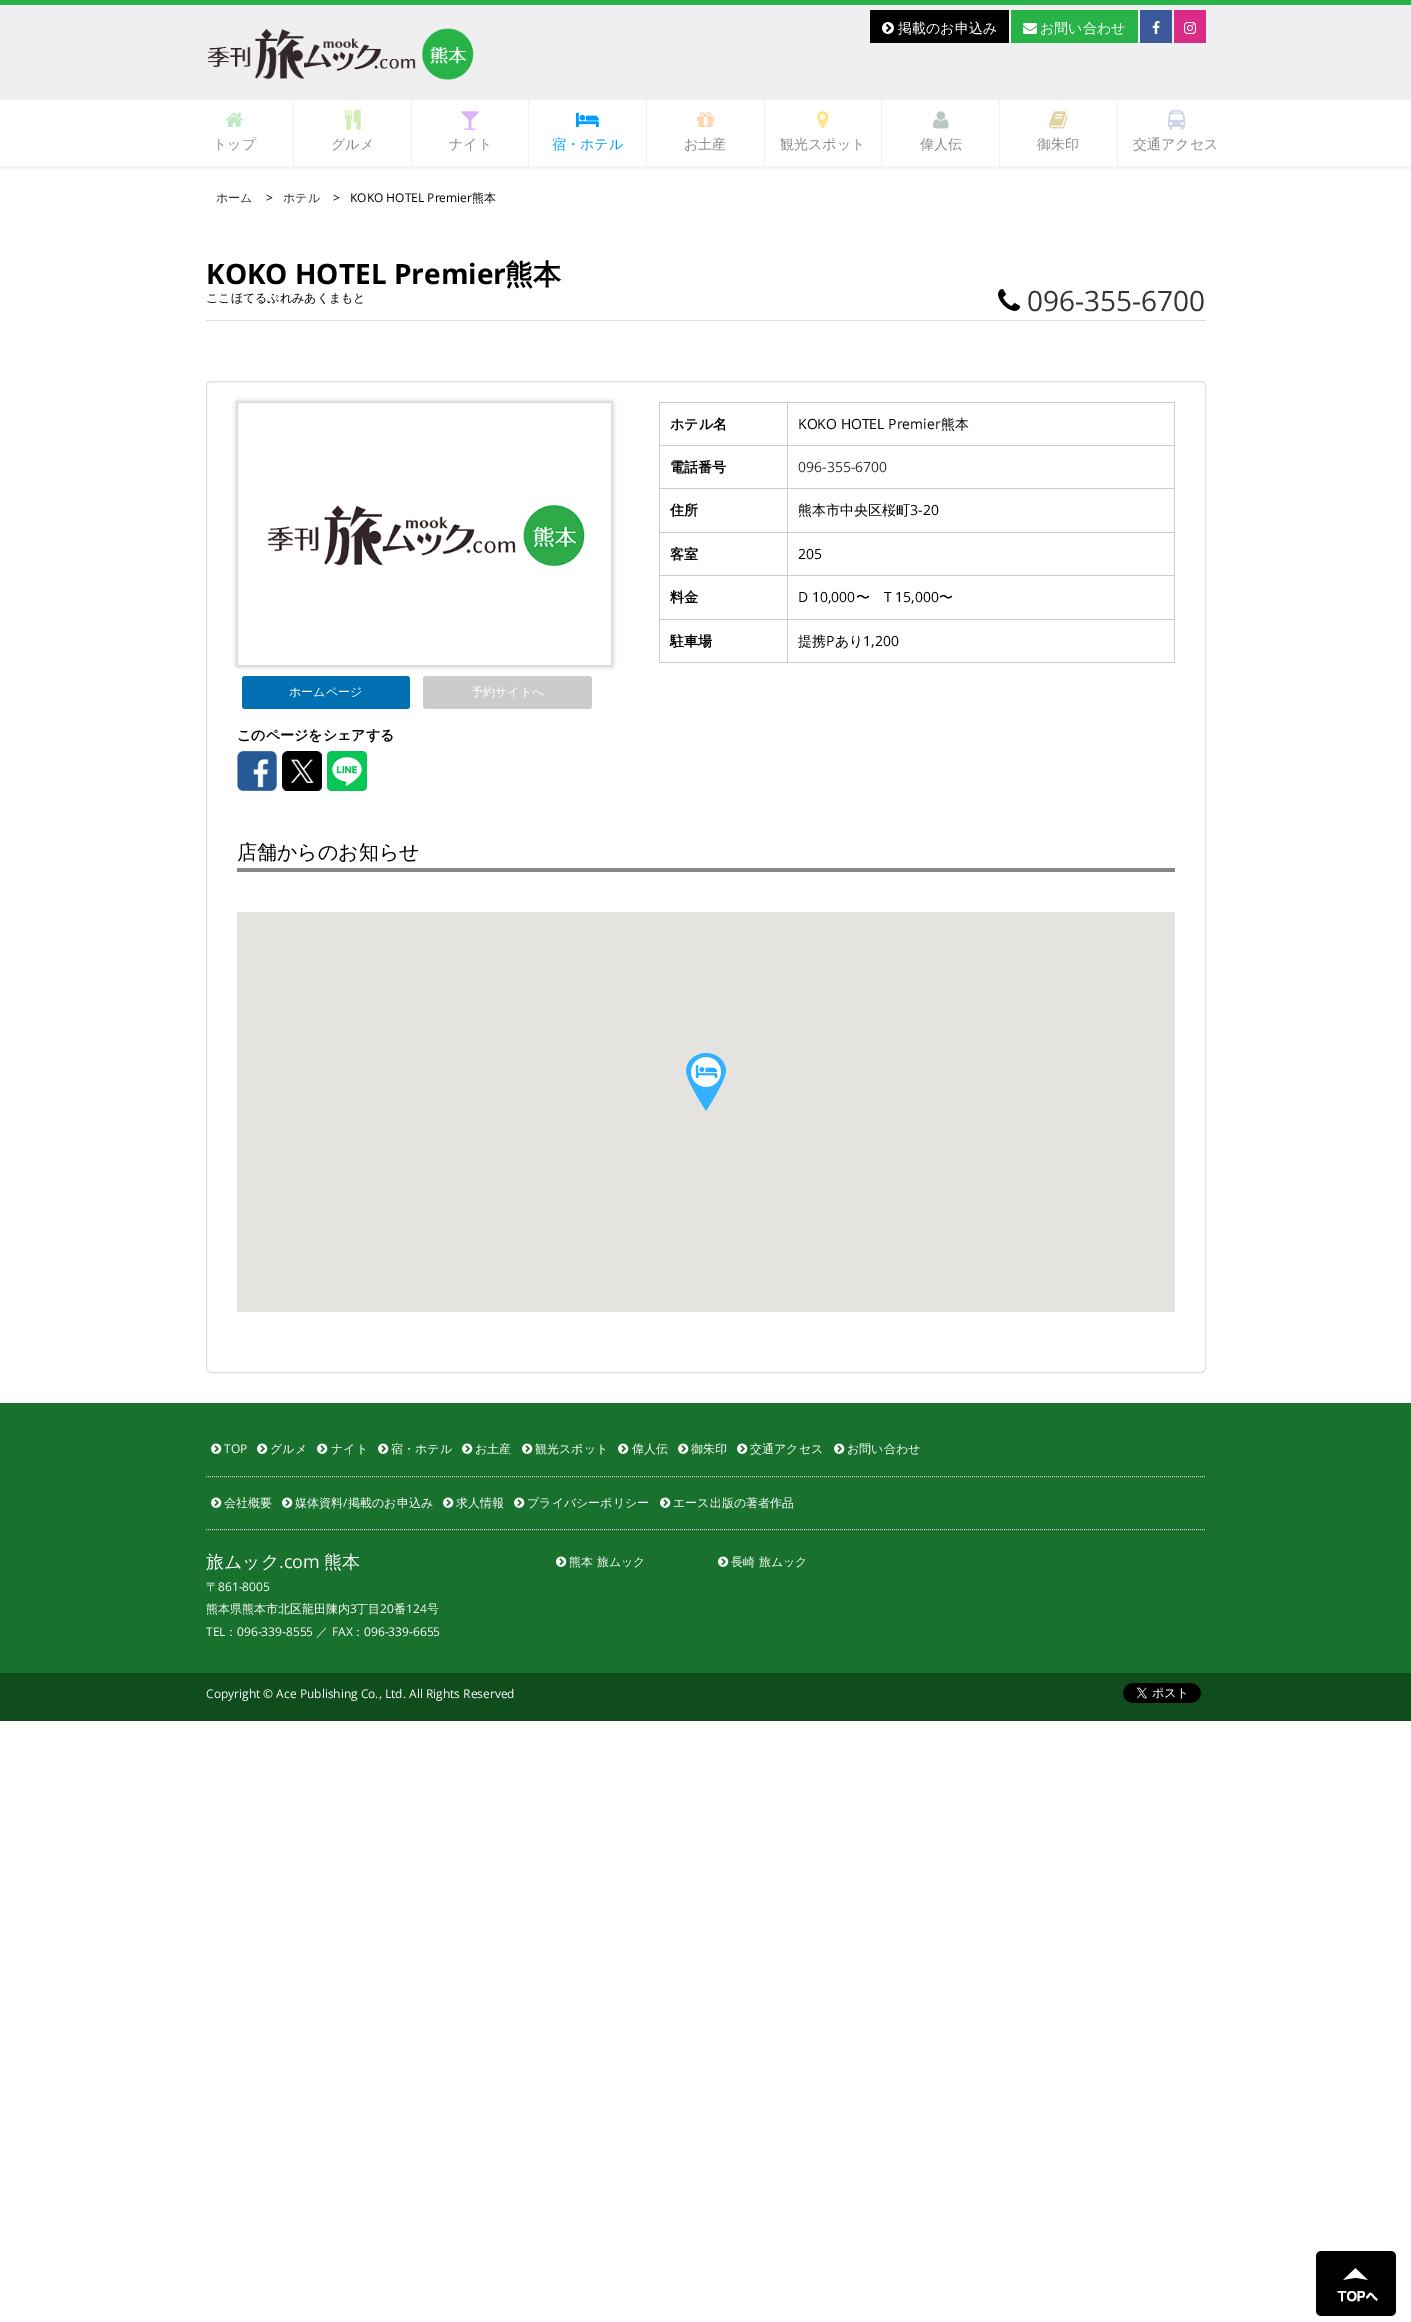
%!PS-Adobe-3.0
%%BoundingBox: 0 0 1411 2322
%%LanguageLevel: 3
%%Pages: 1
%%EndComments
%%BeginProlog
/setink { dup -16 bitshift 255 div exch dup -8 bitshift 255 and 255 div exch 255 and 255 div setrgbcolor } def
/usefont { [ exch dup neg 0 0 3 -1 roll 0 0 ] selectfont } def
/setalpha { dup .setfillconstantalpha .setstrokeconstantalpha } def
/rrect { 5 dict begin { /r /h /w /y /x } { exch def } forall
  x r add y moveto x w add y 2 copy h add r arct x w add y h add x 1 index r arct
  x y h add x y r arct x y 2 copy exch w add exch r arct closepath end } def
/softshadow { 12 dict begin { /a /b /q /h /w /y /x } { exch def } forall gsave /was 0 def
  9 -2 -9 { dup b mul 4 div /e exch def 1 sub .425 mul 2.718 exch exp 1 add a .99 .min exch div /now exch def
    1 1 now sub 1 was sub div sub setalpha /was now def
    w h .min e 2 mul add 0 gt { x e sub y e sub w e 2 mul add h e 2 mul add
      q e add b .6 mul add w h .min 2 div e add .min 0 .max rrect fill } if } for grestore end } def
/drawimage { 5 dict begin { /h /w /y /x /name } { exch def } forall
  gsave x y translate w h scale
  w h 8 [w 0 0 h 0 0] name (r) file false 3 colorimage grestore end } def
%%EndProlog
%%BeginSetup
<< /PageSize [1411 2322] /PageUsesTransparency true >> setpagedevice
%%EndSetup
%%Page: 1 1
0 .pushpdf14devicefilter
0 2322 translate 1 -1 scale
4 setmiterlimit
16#FFFFFF setink
0 0 1411 2322 rectfill
gsave
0 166 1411 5 rectclip
16#000000 setink
0 100 1411 66 0 5 0.11 softshadow
grestore
16#EFEFEF setink
0 5 1411 95 rectfill
16#27B348 setink
0 0 1411 5 rectfill
(img1.raw) 207 28 267 52 drawimage
16#000000 setink
870 10 139 33 rectfill
(img2.raw) 882 22 12 12 drawimage
/WenQuanYiZenHei-Medium 14 usefont
16#FFFFFF setink
898 33 moveto (掲載のお申込み) show
16#27B348 setink
1011 10 127 33 rectfill
(img3.raw) 1023 23 14 11 drawimage
16#FFFFFF setink
1040 33 moveto (お問い合わせ) show
16#3B5998 setink
1140 10 32 33 rectfill
(img4.raw) 1152 21 8 13 drawimage
16#D82C87 setink
1174 10 32 33 rectfill
(img5.raw) 1184 22 12 12 drawimage
(img6.raw) 225 112 19 15 drawimage
16#8A8A8A setink
213 149 moveto (トップ) show
16#EFEFEF setink
293 100 1 66 rectfill
(img7.raw) 345 109 16 21 drawimage
16#8A8A8A setink
331 149 moveto (グルメ) show
16#EFEFEF setink
411 100 1 66 rectfill
(img8.raw) 461 111 18 19 drawimage
16#8A8A8A setink
449 149 moveto (ナイト) show
16#EFEFEF setink
528 100 1 66 rectfill
(img9.raw) 576 112 23 15 drawimage
16#009EFF setink
552 149 moveto (宿・ホテル) show
16#EFEFEF setink
646 100 1 66 rectfill
(img10.raw) 697 112 18 15 drawimage
16#8A8A8A setink
684 149 moveto (お土産) show
16#EFEFEF setink
764 100 1 66 rectfill
(img11.raw) 817 111 12 18 drawimage
16#8A8A8A setink
780 149 moveto (観光スポット) show
16#EFEFEF setink
881 100 1 66 rectfill
(img12.raw) 933 111 16 18 drawimage
16#8A8A8A setink
920 149 moveto (偉人伝) show
16#EFEFEF setink
999 100 1 66 rectfill
(img13.raw) 1049 111 19 18 drawimage
16#8A8A8A setink
1037 149 moveto (御朱印) show
16#EFEFEF setink
1117 100 1 66 rectfill
(img14.raw) 1168 109 18 21 drawimage
16#8A8A8A setink
1133 149 moveto (交通アクセス) show
/WenQuanYiZenHei-Medium 12 usefont
16#333333 setink
216 202 moveto (ホーム) show
/OpenSans-Regular 12 usefont
16#000000 setink
266 202 moveto (>) show
/WenQuanYiZenHei-Medium 12 usefont
16#333333 setink
283 202 moveto (ホテル) show
/OpenSans-Regular 12 usefont
16#000000 setink
333 202 moveto (>) show
350 202 moveto (KOKO HOTEL Premier) show
/WenQuanYiZenHei-Medium 12 usefont
472 202 moveto (熊本) show
16#DDDDDD setink
206 320 1000 1 rectfill
/OpenSans-Bold 28 usefont
16#000000 setink
206 284 moveto (KOKO HOTEL Premier) show
/WenQuanYiZenHei-Bold 28 usefont
505 284 moveto (熊本) show
/WenQuanYiZenHei-Medium 12 usefont
206 302 moveto (ここほてるぷれみあくまもと) show
(img15.raw) 998 289 22 22 drawimage
/OpenSans-Regular 28 usefont
16#333333 setink
1027 311 moveto (096-355-6700) show
16#DDDDDD setink
206.5 381.5 999 991 4.5 rrect stroke
[
    [659 402 516 1 16#CCCCCC]
    [659 402 1 261 16#CCCCCC]
    [1174 402 1 261 16#CCCCCC]
    [787 662 388 1 16#CCCCCC]
    [787 619 1 44 16#CCCCCC]
    [787 619 388 1 16#CCCCCC]
    [787 575 1 45 16#CCCCCC]
    [787 575 388 1 16#CCCCCC]
    [787 532 1 44 16#CCCCCC]
    [787 532 388 1 16#CCCCCC]
    [787 488 1 45 16#CCCCCC]
    [787 488 388 1 16#CCCCCC]
    [787 445 1 44 16#CCCCCC]
    [787 445 388 1 16#CCCCCC]
    [787 402 1 44 16#CCCCCC]
    [659 445 129 1 16#CCCCCC]
] { aload pop setink rectfill } forall
/WenQuanYiZenHei-Bold 14 usefont
16#000000 setink
670 429 moveto (ホテル名) show
/OpenSans-Regular 14 usefont
798 429 moveto (KOKO HOTEL Premier) show
/WenQuanYiZenHei-Medium 14 usefont
941 429 moveto (熊本) show
16#CCCCCC setink
659 488 129 1 rectfill
/WenQuanYiZenHei-Bold 14 usefont
16#000000 setink
670 472 moveto (電話番号) show
/OpenSans-Regular 14 usefont
16#333333 setink
798 472 moveto (096-355-6700) show
16#CCCCCC setink
659 532 129 1 rectfill
/WenQuanYiZenHei-Bold 14 usefont
16#000000 setink
670 515 moveto (住所) show
/WenQuanYiZenHei-Medium 14 usefont
798 515 moveto (熊本市中央区桜町) show
/OpenSans-Regular 14 usefont
910 515 moveto (3-20) show
16#CCCCCC setink
659 575 129 1 rectfill
/WenQuanYiZenHei-Bold 14 usefont
16#000000 setink
670 559 moveto (客室) show
/OpenSans-Regular 14 usefont
798 559 moveto (205) show
16#CCCCCC setink
659 619 129 1 rectfill
/WenQuanYiZenHei-Bold 14 usefont
16#000000 setink
670 602 moveto (料金) show
/OpenSans-Regular 14 usefont
798 602 moveto (D 10,000) show
/WenQuanYiZenHei-Medium 14 usefont
856 602 moveto (〜) show
/OpenSans-Regular 14 usefont
884 602 moveto (T 15,000) show
/WenQuanYiZenHei-Medium 14 usefont
939 602 moveto (〜) show
16#CCCCCC setink
659 662 129 1 rectfill
/WenQuanYiZenHei-Bold 14 usefont
16#000000 setink
670 646 moveto (駐車場) show
/WenQuanYiZenHei-Medium 14 usefont
798 646 moveto (提携) show
/OpenSans-Regular 14 usefont
826 646 moveto (P) show
/WenQuanYiZenHei-Medium 14 usefont
835 646 moveto (あり) show
/OpenSans-Regular 14 usefont
863 646 moveto (1,200) show
gsave
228 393 moveto 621 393 lineto 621 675 lineto 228 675 lineto closepath 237 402 moveto 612 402 lineto 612 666 lineto 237 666 lineto closepath eoclip newpath
237 402 375 264 0 2.5 0.3 softshadow
grestore
(img16.raw) 267 504 318 63 drawimage
16#DDDDDD setink
237.5 402.5 374 263 rectstroke
16#0070B3 setink
242 676 168 33 3 rrect fill
/WenQuanYiZenHei-Medium 12 usefont
16#FFFFFF setink
289 696 moveto (ホームページ) show
16#CCCCCC setink
423 676 169 33 3 rrect fill
16#FFFFFF setink
471 696 moveto (予約サイトへ) show
/WenQuanYiZenHei-Bold 14 usefont
16#000000 setink
237 740 moveto (このページをシェアする) show
(img17.raw) 237 751 40 40 drawimage
(img18.raw) 282 751 40 40 drawimage
(img19.raw) 327 751 40 40 drawimage
16#888888 setink
237 868 938 4 rectfill
/WenQuanYiZenHei-Medium 20 usefont
16#000000 setink
237 859 moveto (店舗からのお知らせ) show
16#E5E3DF setink
237 912 938 400 rectfill
(img20.raw) 686 1053 40 58 drawimage
16#19712E setink
0 1403 1411 270 rectfill
16#CCCCCC setink
[1 1] 0 setdash
206 1476.5 moveto 1206 1476.5 lineto stroke
(img21.raw) 211 1443 11 11 drawimage
/OpenSans-Regular 12 usefont
16#FFFFFF setink
224 1453 moveto (TOP) show
(img21.raw) 257 1443 11 11 drawimage
/WenQuanYiZenHei-Medium 12 usefont
270 1453 moveto (グルメ) show
(img21.raw) 317 1443 11 11 drawimage
331 1453 moveto (ナイト) show
(img21.raw) 378 1443 11 11 drawimage
391 1453 moveto (宿・ホテル) show
(img21.raw) 462 1443 11 11 drawimage
475 1453 moveto (お土産) show
(img21.raw) 522 1443 11 11 drawimage
535 1453 moveto (観光スポット) show
(img21.raw) 618 1443 11 11 drawimage
632 1453 moveto (偉人伝) show
(img21.raw) 678 1443 11 11 drawimage
691 1453 moveto (御朱印) show
(img21.raw) 737 1443 11 11 drawimage
750 1453 moveto (交通アクセス) show
(img21.raw) 834 1443 11 11 drawimage
847 1453 moveto (お問い合わせ) show
16#CCCCCC setink
206 1529.5 moveto 1206 1529.5 lineto stroke
(img21.raw) 211 1497 11 11 drawimage
16#FFFFFF setink
224 1507 moveto (会社概要) show
(img21.raw) 282 1497 11 11 drawimage
295 1507 moveto (媒体資料) show
/OpenSans-Regular 12 usefont
343 1507 moveto (/) show
/WenQuanYiZenHei-Medium 12 usefont
348 1507 moveto (掲載のお申込み) show
(img21.raw) 443 1497 11 11 drawimage
456 1507 moveto (求人情報) show
(img21.raw) 514 1497 11 11 drawimage
527 1507 moveto (プライバシーポリシー) show
(img21.raw) 660 1497 11 11 drawimage
673 1507 moveto (エース出版の著者作品) show
/WenQuanYiZenHei-Medium 18 usefont
206 1568 moveto (旅ムック) show
/OpenSans-Regular 18 usefont
279 1568 moveto (.com) show
/WenQuanYiZenHei-Medium 18 usefont
324 1568 moveto (熊本) show
/WenQuanYiZenHei-Medium 12 usefont
206 1591 moveto (〒) show
/OpenSans-Regular 12 usefont
218 1591 moveto (861-8005) show
/WenQuanYiZenHei-Medium 12 usefont
206 1613 moveto (熊本県熊本市北区龍田陳内) show
/OpenSans-Regular 12 usefont
350 1613 moveto (3) show
/WenQuanYiZenHei-Medium 12 usefont
356 1613 moveto (丁目) show
/OpenSans-Regular 12 usefont
380 1613 moveto (20) show
/WenQuanYiZenHei-Medium 12 usefont
394 1613 moveto (番) show
/OpenSans-Regular 12 usefont
406 1613 moveto (124) show
/WenQuanYiZenHei-Medium 12 usefont
427 1613 moveto (号) show
/OpenSans-Regular 12 usefont
206 1636 moveto (TEL) show
/WenQuanYiZenHei-Medium 12 usefont
225 1636 moveto (：) show
/OpenSans-Regular 12 usefont
237 1636 moveto (096-339-8555) show
/WenQuanYiZenHei-Medium 12 usefont
316 1636 moveto (／) show
/OpenSans-Regular 12 usefont
332 1636 moveto (FAX) show
/WenQuanYiZenHei-Medium 12 usefont
352 1636 moveto (：) show
/OpenSans-Regular 12 usefont
364 1636 moveto (096-339-6655) show
(img21.raw) 556 1556 11 11 drawimage
/WenQuanYiZenHei-Medium 12 usefont
569 1566 moveto (熊本 旅ムック) show
(img21.raw) 718 1556 11 11 drawimage
731 1566 moveto (長崎 旅ムック) show
16#0F4D1C setink
0 1673 1411 48 rectfill
/OpenSans-Regular 12 usefont
16#FFFFFF setink
206 1698 moveto (Copyright © Ace Publishing Co., Ltd. All Rights Reserved) show
(img22.raw) 1123 1683 78 20 drawimage
(img23.raw) 1316 2251 80 65 drawimage
.poppdf14devicefilter showpage
%%EOF
